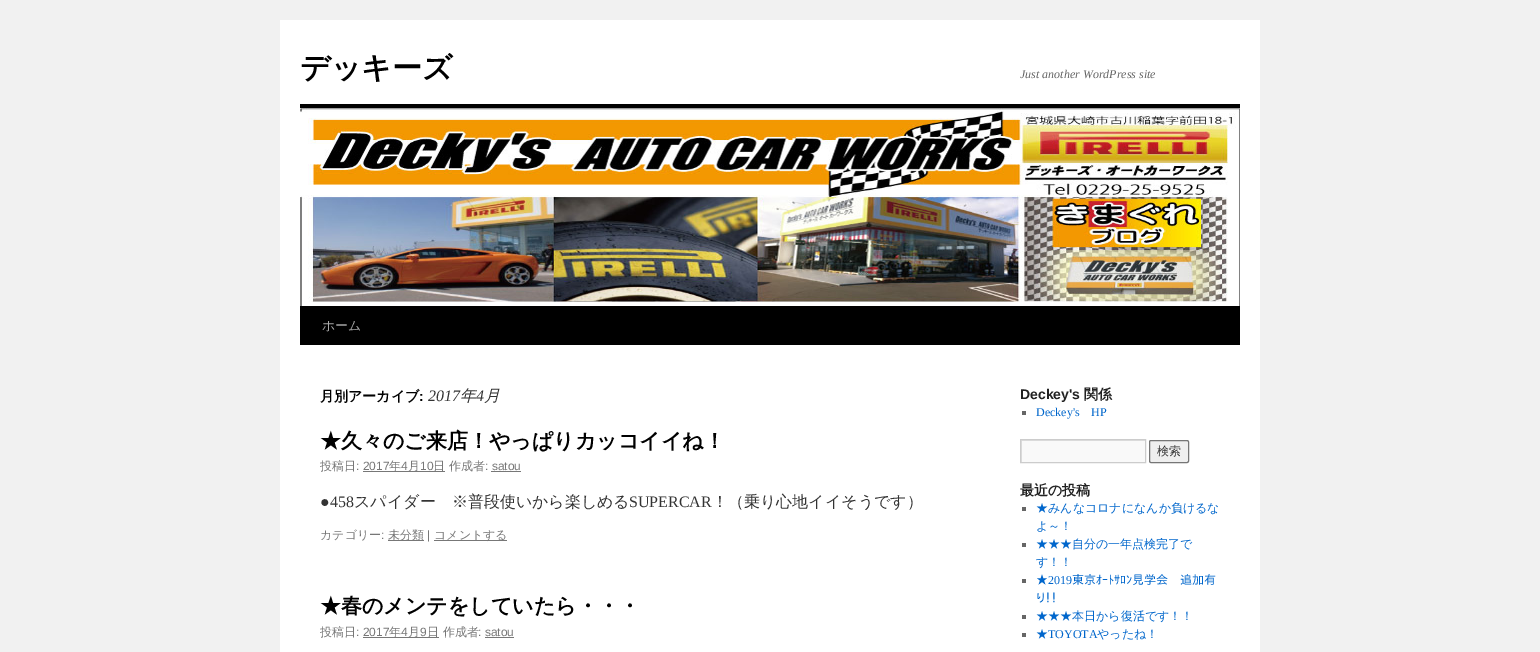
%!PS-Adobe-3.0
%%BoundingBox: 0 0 1540 652
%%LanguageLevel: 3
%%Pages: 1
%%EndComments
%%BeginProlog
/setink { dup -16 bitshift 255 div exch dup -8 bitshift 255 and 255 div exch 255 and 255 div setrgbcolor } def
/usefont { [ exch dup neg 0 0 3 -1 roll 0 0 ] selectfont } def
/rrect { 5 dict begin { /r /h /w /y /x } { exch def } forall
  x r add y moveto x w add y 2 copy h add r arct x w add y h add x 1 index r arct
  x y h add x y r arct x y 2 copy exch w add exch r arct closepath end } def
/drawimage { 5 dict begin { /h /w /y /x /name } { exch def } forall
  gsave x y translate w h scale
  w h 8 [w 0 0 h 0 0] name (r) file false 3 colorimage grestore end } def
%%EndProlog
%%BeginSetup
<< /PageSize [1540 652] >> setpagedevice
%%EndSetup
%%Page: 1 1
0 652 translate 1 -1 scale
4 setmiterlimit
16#F1F1F1 setink
0 0 1540 652 rectfill
16#FFFFFF setink
280 20 980 632 rectfill
/WenQuanYiZenHei-Bold 30 usefont
16#000000 setink
300 78 moveto (デッキーズ) show
/LiberationSerif-Italic 12 usefont
16#666666 setink
1020 78 moveto (Just another WordPress site) show
16#000000 setink
300 104 940 4 rectfill
300 306 940 39 rectfill
(img1.raw) 300 108 940 198 drawimage
/WenQuanYiZenHei-Medium 13 usefont
16#AAAAAA setink
322 330 moveto (ホーム) show
/WenQuanYiZenHei-Bold 14 usefont
16#000000 setink
320 401 moveto (月別アーカイブ) show
/LiberationSans-Bold 14 usefont
419 401 moveto (:) show
/LiberationSerif-Italic 16 usefont
16#333333 setink
428 401 moveto (2017) show
/WenQuanYiZenHei-MediumItalic 16 usefont
460 401 moveto (年) show
/LiberationSerif-Italic 16 usefont
476 401 moveto (4) show
/WenQuanYiZenHei-MediumItalic 16 usefont
484 401 moveto (月) show
/WenQuanYiZenHei-Bold 21 usefont
16#000000 setink
320 448 moveto (★久々のご来店！やっぱりカッコイイね！) show
/WenQuanYiZenHei-Medium 12 usefont
16#777777 setink
320 470 moveto (投稿日) show
/LiberationSans-Regular 12 usefont
356 470 moveto (: 2017) show
363 471 82 1 rectfill
/WenQuanYiZenHei-Medium 12 usefont
389 470 moveto (年) show
/LiberationSans-Regular 12 usefont
401 470 moveto (4) show
/WenQuanYiZenHei-Medium 12 usefont
408 470 moveto (月) show
/LiberationSans-Regular 12 usefont
420 470 moveto (10) show
/WenQuanYiZenHei-Medium 12 usefont
433 470 moveto (日 作成者) show
/LiberationSans-Regular 12 usefont
485 470 moveto (: satou) show
491 471 30 1 rectfill
/LiberationSerif-Regular 16 usefont
16#333333 setink
320 507 moveto (●458) show
/WenQuanYiZenHei-Medium 16 usefont
354 507 moveto (スパイダー　※普段使いから楽しめる) show
/LiberationSerif-Regular 16 usefont
629 507 moveto (SUPERCAR) show
/WenQuanYiZenHei-Medium 16 usefont
712 507 moveto (！（乗り心地イイそうです）) show
/WenQuanYiZenHei-Medium 12 usefont
16#777777 setink
320 539 moveto (カテゴリー) show
/LiberationSans-Regular 12 usefont
381 539 moveto (:) show
388 540 36 1 rectfill
/WenQuanYiZenHei-Medium 12 usefont
388 539 moveto (未分類) show
/LiberationSans-Regular 12 usefont
427 539 moveto (|) show
434 540 73 1 rectfill
/WenQuanYiZenHei-Medium 12 usefont
434 539 moveto (コメントする) show
/WenQuanYiZenHei-Bold 21 usefont
16#000000 setink
320 613 moveto (★春のメンテをしていたら・・・) show
/WenQuanYiZenHei-Medium 12 usefont
16#777777 setink
320 636 moveto (投稿日) show
/LiberationSans-Regular 12 usefont
356 636 moveto (: 2017) show
363 637 76 1 rectfill
/WenQuanYiZenHei-Medium 12 usefont
389 636 moveto (年) show
/LiberationSans-Regular 12 usefont
401 636 moveto (4) show
/WenQuanYiZenHei-Medium 12 usefont
408 636 moveto (月) show
/LiberationSans-Regular 12 usefont
420 636 moveto (9) show
/WenQuanYiZenHei-Medium 12 usefont
427 636 moveto (日 作成者) show
/LiberationSans-Regular 12 usefont
478 636 moveto (: satou) show
485 637 29 1 rectfill
/LiberationSans-Bold 14 usefont
16#222222 setink
1020 399 moveto (Deckey's) show
/WenQuanYiZenHei-Bold 14 usefont
1084 399 moveto (関係) show
16#666666 setink
1022 411 4 4 rectfill
/LiberationSerif-Regular 12 usefont
16#0066CC setink
1036 416 moveto (Deckey's) show
1091 416 moveto (HP) show
16#F9F9F9 setink
1022 441 123 21 rectfill
gsave
1021 440 124 22 rectclip
16#E0E0E0 setink
922 341 moveto 1244 341 lineto 1244 561 lineto 922 561 lineto closepath 1022 441 moveto 1146 441 lineto 1146 463 lineto 1022 463 lineto closepath eofill
grestore
16#CCCCCC setink
1020.5 439.5 125 23 rectstroke
16#EFEFEF setink
1149.5 440.5 39 22 1.5 rrect gsave fill grestore
16#767676 setink
stroke
/WenQuanYiZenHei-Medium 12 usefont
16#333333 setink
1157 455 moveto (検索) show
/WenQuanYiZenHei-Bold 14 usefont
16#222222 setink
1020 495 moveto (最近の投稿) show
16#666666 setink
1022 507 4 4 rectfill
/WenQuanYiZenHei-Medium 12 usefont
16#0066CC setink
1036 512 moveto (★みんなコロナになんか負けるな) show
1036 530 moveto (よ～！) show
16#666666 setink
1022 543 4 4 rectfill
16#0066CC setink
1036 548 moveto (★★★自分の一年点検完了で) show
1036 566 moveto (す！！) show
16#666666 setink
1022 579 4 4 rectfill
/IPAPGothic-Regular 12 usefont
16#0066CC setink
1036 584 moveto (★) show
/LiberationSerif-Regular 12 usefont
1048 584 moveto (2019) show
/IPAPGothic-Regular 12 usefont
1072 584 moveto (東京ｵｰﾄｻﾛﾝ見学会　追加有) show
1036 602 moveto (り！！) show
16#666666 setink
1022 615 4 4 rectfill
/WenQuanYiZenHei-Medium 12 usefont
16#0066CC setink
1036 620 moveto (★★★本日から復活です！！) show
16#666666 setink
1022 633 4 4 rectfill
16#0066CC setink
1036 638 moveto (★) show
/LiberationSerif-Regular 12 usefont
1048 638 moveto (TOYOTA) show
/WenQuanYiZenHei-Medium 12 usefont
1097 638 moveto (やったね！) show
showpage
%%EOF
